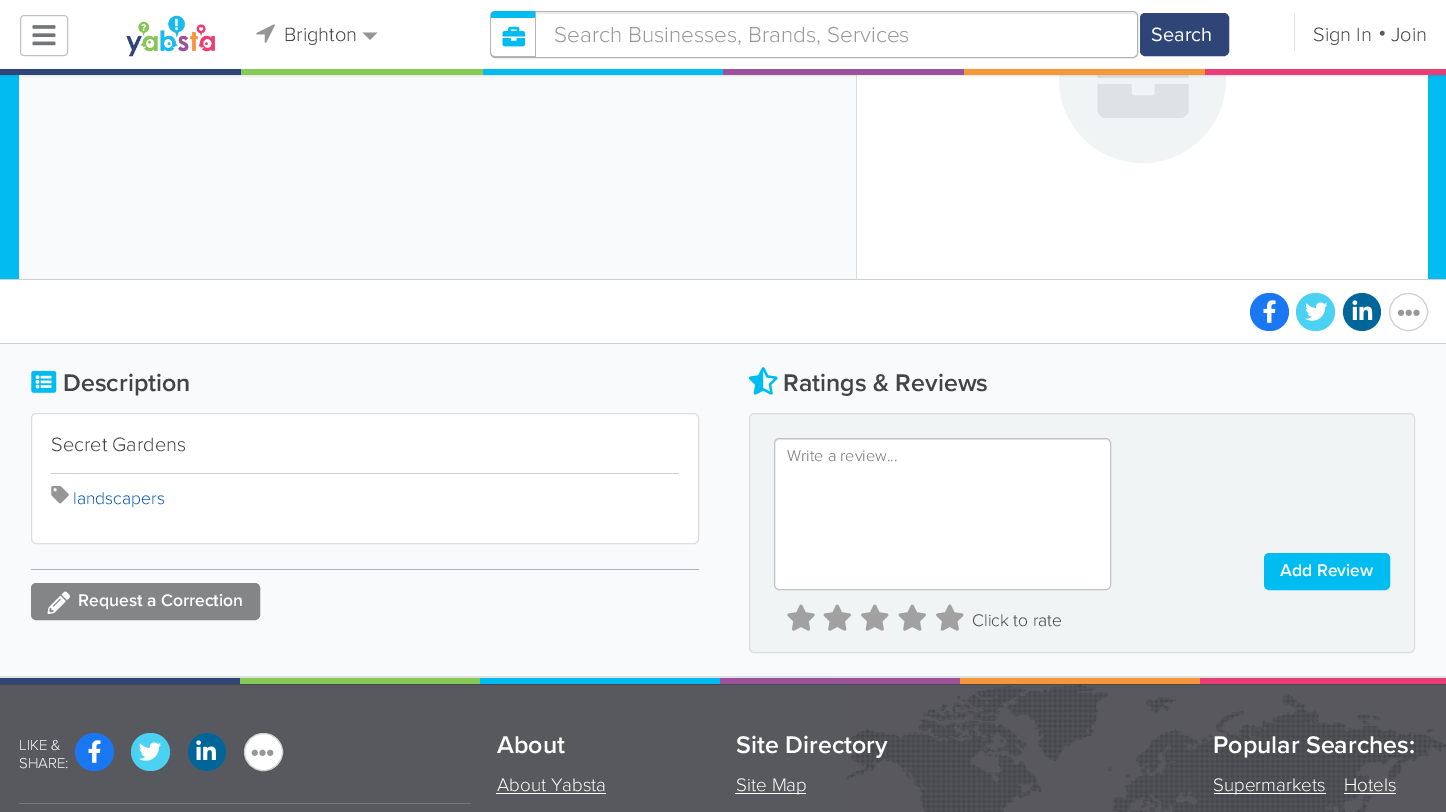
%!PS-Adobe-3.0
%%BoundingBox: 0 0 1446 812
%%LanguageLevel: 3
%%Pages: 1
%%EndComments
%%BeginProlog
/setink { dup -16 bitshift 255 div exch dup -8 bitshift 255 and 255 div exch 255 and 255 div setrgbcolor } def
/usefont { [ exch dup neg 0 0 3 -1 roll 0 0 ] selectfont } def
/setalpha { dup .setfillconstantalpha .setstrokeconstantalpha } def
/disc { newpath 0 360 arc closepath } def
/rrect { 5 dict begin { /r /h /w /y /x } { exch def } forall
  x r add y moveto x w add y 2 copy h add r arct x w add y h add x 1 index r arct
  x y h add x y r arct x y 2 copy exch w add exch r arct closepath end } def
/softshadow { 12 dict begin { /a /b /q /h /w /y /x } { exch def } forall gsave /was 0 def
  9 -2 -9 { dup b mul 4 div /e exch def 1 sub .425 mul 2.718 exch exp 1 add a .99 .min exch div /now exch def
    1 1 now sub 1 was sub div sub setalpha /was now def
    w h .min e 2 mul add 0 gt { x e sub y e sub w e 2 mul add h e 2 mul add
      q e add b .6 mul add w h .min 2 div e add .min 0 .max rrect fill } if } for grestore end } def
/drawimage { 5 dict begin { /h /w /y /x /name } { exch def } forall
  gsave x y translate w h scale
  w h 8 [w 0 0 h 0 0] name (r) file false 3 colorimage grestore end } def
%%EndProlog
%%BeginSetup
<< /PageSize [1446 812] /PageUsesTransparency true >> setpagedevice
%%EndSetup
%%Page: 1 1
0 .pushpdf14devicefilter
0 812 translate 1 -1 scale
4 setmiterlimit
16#F9FAFC setink
0 0 1446 812 rectfill
16#00BCF1 setink
0 75 1446 204 rectfill
16#FFFFFF setink
857 75 571 204 rectfill
16#F0F4F5 setink
1059 -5 167 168 83.5 rrect fill
16#FFFFFF setink
0 0 1446 69 rectfill
16#C2C3C4 setink
20.5 15.5 47 40 3.5 rrect stroke
(img1.raw) 32 25 24 21 drawimage
(img2.raw) 126 15 90 42 drawimage
(img3.raw) 256 24 19 19 drawimage
/ProximaNova-Light 20 usefont
16#444444 setink
284 41 moveto (Brighton) show
16#959595 setink
362.5 32.5 moveto 377.5 32.5 lineto 370 40 lineto closepath fill
16#ECECEC setink
495 14 moveto 1132 14 lineto 1135 14 1136 15 1136 18 curveto 1136 15 1135 13 1132 13 curveto 495 13 lineto 492 13 491 15 491 18 curveto 491 15 493 14 495 14 curveto closepath fill
16#B3B3B3 setink
490.5 11.5 647 46 4.5 rrect stroke
16#FFFFFF setink
495 11 moveto 536 11 lineto 536 58 lineto 495 58 lineto 492 58 490 56 490 53 curveto 490 16 lineto 490 13 492 11 495 11 curveto closepath fill
16#B3B3B3 setink
495 11 moveto 536 11 lineto 536 58 lineto 495 58 lineto 492 58 490 55 490 52 curveto 490 16 lineto 490 13 492 11 495 11 curveto closepath 495 11 moveto 535 11 lineto 535 56 lineto 495 56 lineto 493 56 491 55 491 52 curveto 491 16 lineto 491 13 493 11 495 11 curveto closepath eofill
16#00BCF1 setink
495 11 moveto 535 11 lineto 535 18 lineto 491 18 lineto 491 15 lineto 491 13 493 11 495 11 curveto closepath fill
(img4.raw) 502 26 23 21 drawimage
/ProximaNova-Light 22.5 usefont
16#999999 setink
554 42 moveto (Search Businesses, Brands, Services) show
16#2F4577 setink
1140.5 13.5 88 42 4.5 rrect gsave fill grestore
stroke
/ProximaNova-Regular 20 usefont
16#FFFFFF setink
1151 41 moveto (Search) show
16#DFE0E4 setink
1294 14 1 37 rectfill
/ProximaNova-Light 20 usefont
16#444444 setink
1313 41 moveto (Sign In) show
/ProximaNova-Light 24 usefont
16#585B5D setink
1378 39 moveto (•) show
/ProximaNova-Light 20 usefont
16#444444 setink
1391 41 moveto (Join) show
16#F9FAFC setink
19 75 837 204 rectfill
16#DDDDDD setink
856 75 1 204 rectfill
(img5.raw) 1097 75 92 43 drawimage
16#000000 setink
0 70 1446 6 0 1 0.1 softshadow
[
    [1205 69 241 6 16#EB3E76]
    [0 69 241 6 16#2F4577]
    [241 69 242 6 16#87CA56]
    [483 69 240 6 16#00BCF1]
    [723 69 241 6 16#9C529A]
    [964 69 241 6 16#F6973A]
    [0 280 1446 63 16#FFFFFF]
    [0 279 1446 1 16#CDCFD5]
    [0 343 1446 1 16#CDCFD5]
] { aload pop setink rectfill } forall
16#1877F1 setink
1250 293 39 38 19 rrect fill
(img6.raw) 1263 300 13 23 drawimage
16#4BD2F2 setink
1296 293 39 38 19 rrect fill
(img7.raw) 1305 302 23 19 drawimage
16#006699 setink
1362 312 19 disc fill
(img8.raw) 1352 300 21 20 drawimage
16#CDCFD5 setink
1389.5 293.5 38 37 18.5 rrect stroke
(img9.raw) 1397 309 23 7 drawimage
(img10.raw) 31 370 26 23 drawimage
/ProximaNova-SemiBold 25 usefont
16#444444 setink
63 391 moveto (Description) show
16#FFFFFF setink
31.5 413.5 667 130 4.5 rrect gsave fill grestore
16#DDDDDD setink
stroke
/ProximaNova-Light 20 usefont
16#444444 setink
51 451 moveto (Secret Gardens) show
16#CDCFD5 setink
51 473 628 1 rectfill
(img11.raw) 51 485 18 19 drawimage
/ProximaNova-Light 17.5 usefont
16#0158B0 setink
73 504 moveto (landscapers) show
16#B3B5B8 setink
31 569 668 1 rectfill
16#848586 setink
31.5 583.5 228 36 4.5 rrect gsave fill grestore
stroke
(img12.raw) 47 591 23 24 drawimage
/ProximaNova-SemiBold 17.5 usefont
16#FFFFFF setink
78 606 moveto (Request a Correction) show
(img13.raw) 748 367 30 28 drawimage
/ProximaNova-SemiBold 25 usefont
16#444444 setink
783 391 moveto (Ratings & Reviews) show
16#F0F4F5 setink
749.5 413.5 665 239 4.5 rrect gsave fill grestore
16#DDDDDD setink
stroke
16#FFFFFF setink
774 438 337 152 5 rrect fill
16#ECECEC setink
779 440 moveto 1106 440 lineto 1108 440 1110 442 1110 444 curveto 1110 441 1109 439 1106 439 curveto 779 439 lineto 776 439 775 441 775 444 curveto 775 442 777 440 779 440 curveto closepath fill
16#C2C3C4 setink
774.5 438.5 336 151 4.5 rrect stroke
/ProximaNova-Light 16.25 usefont
16#757575 setink
787 461 moveto (Write a review...) show
16#00BCF1 setink
1264.5 553.5 125 36 4.5 rrect gsave fill grestore
stroke
/ProximaNova-SemiBold 17.5 usefont
16#FFFFFF setink
1280 576 moveto (Add Review) show
(img14.raw) 787 604 28 27 drawimage
(img15.raw) 823 604 28 27 drawimage
(img16.raw) 861 604 28 27 drawimage
(img15.raw) 898 604 28 27 drawimage
(img16.raw) 936 604 28 27 drawimage
/ProximaNova-Light 17.5 usefont
16#444444 setink
972 626 moveto (Click to rate) show
[
    [0 676 1446 2 16#E0E1E3]
    [1200 678 246 6 16#EB3E76]
    [0 678 240 6 16#2F4577]
    [240 678 240 6 16#87CA56]
    [480 678 240 6 16#00BCF1]
    [720 678 240 6 16#9C529A]
    [960 678 240 6 16#F6973A]
    [0 685 847 127 16#58585F]
] { aload pop setink rectfill } forall
(img17.raw) 846 685 600 127 drawimage
16#47474D setink
0 684 1446 1 rectfill
16#78787A setink
19 803 452 1 rectfill
/ProximaNova-Light 15 usefont
16#FFFFFF setink
19 750 moveto (LIKE &) show
19 768 moveto (SHARE:) show
16#1877F1 setink
75 733 39 38 19 rrect fill
(img6.raw) 88 740 13 23 drawimage
16#4BD2F2 setink
131 733 39 38 19 rrect fill
(img18.raw) 139 742 23 19 drawimage
16#006699 setink
207 752 19 disc fill
(img19.raw) 196 740 20 20 drawimage
16#FFFFFF setink
244.5 733.5 38 37 18.5 rrect gsave fill grestore
16#CDCFD5 setink
stroke
(img20.raw) 251 749 23 7 drawimage
/ProximaNova-SemiBold 25 usefont
16#FFFFFF setink
497 753 moveto (About) show
/ProximaNova-Light 18.75 usefont
497 791 moveto (About Yabsta) show
496 793 110 1 rectfill
/ProximaNova-SemiBold 25 usefont
736 753 moveto (Site Directory) show
735 793 71 1 rectfill
/ProximaNova-Light 18.75 usefont
736 791 moveto (Site Map) show
/ProximaNova-SemiBold 25 usefont
1213 753 moveto (Popular Searches:) show
1214 793 112 1 rectfill
/ProximaNova-Light 18.75 usefont
1213 791 moveto (Supermarkets) show
1344 791 moveto (Hotels) show
1344 793 52 1 rectfill
.poppdf14devicefilter showpage
%%EOF
